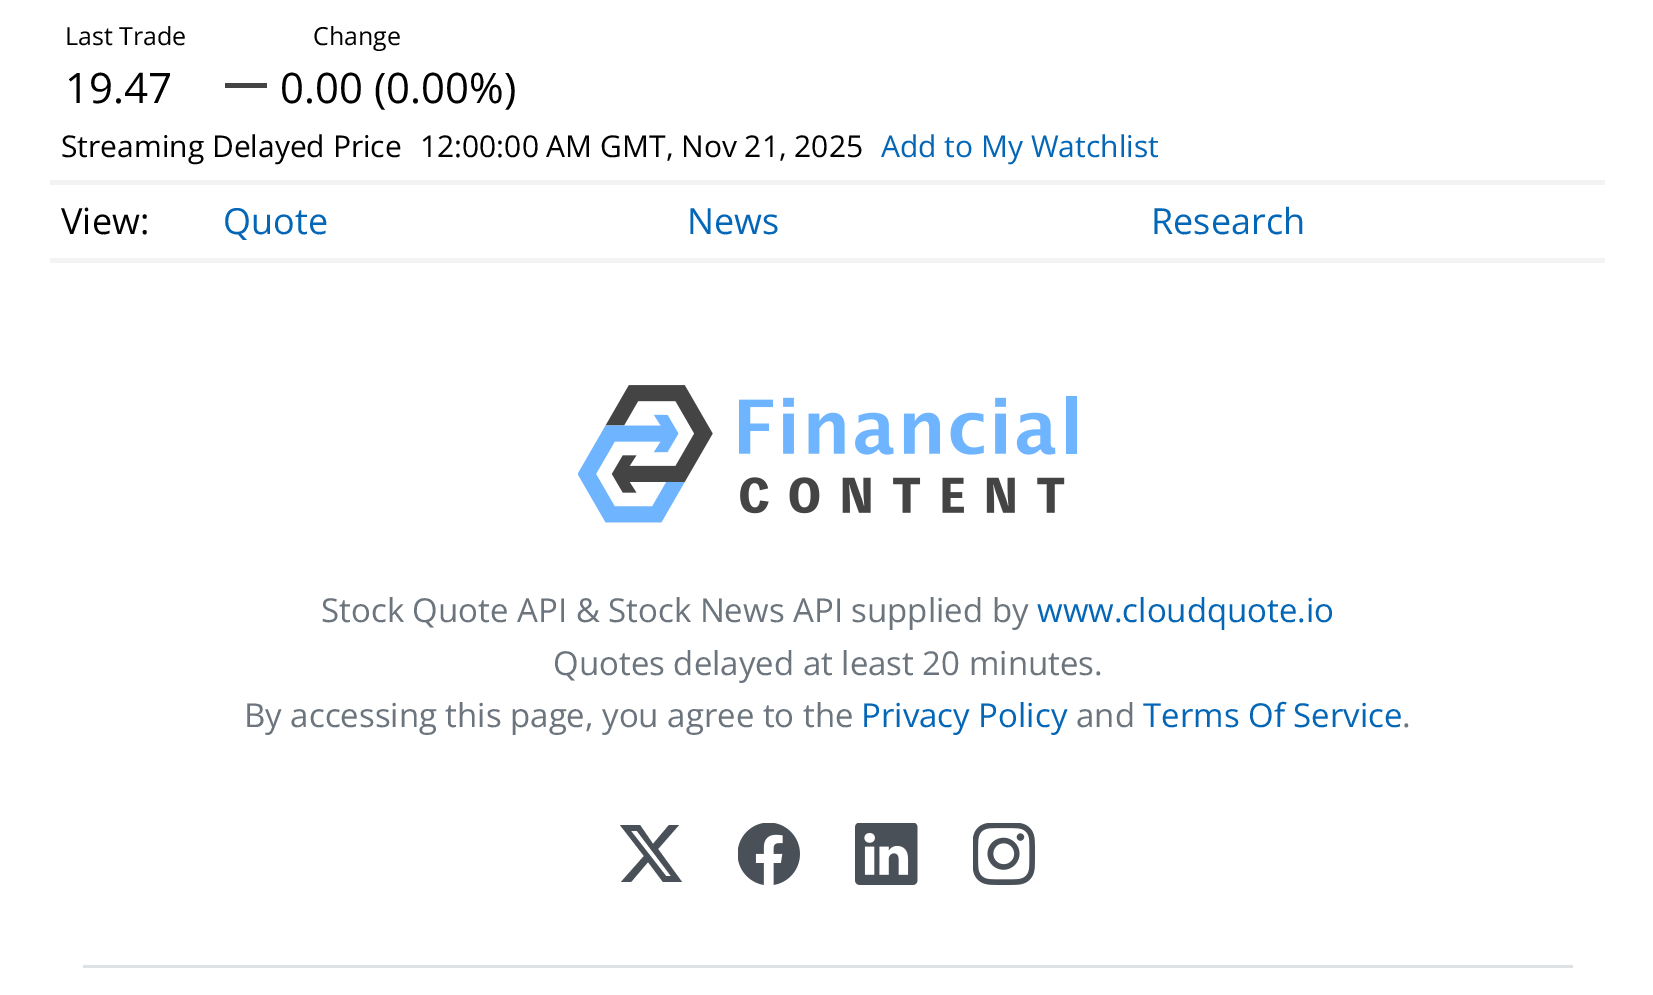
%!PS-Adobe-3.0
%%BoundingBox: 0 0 1653 995
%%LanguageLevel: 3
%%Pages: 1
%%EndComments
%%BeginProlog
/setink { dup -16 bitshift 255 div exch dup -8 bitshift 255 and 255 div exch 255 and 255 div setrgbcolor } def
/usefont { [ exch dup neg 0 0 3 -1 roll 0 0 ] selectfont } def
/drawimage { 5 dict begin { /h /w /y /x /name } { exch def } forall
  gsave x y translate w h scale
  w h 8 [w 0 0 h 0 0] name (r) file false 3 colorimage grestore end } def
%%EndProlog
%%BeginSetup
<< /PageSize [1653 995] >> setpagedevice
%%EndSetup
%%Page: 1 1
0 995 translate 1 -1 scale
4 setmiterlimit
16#FFFFFF setink
0 0 1653 995 rectfill
/OpenSans-Regular 25 usefont
16#000000 setink
65 45 moveto (Last Trade) show
/OpenSans-Regular 42 usefont
65 103 moveto (19.47) show
/OpenSans-Regular 25 usefont
313 45 moveto (Change) show
/OpenSans-Regular 42 usefont
280 103 moveto (0.00 \(0.00%\)) show
16#444444 setink
225 83 42 5 rectfill
/OpenSans-Regular 30 usefont
16#000000 setink
61 157 moveto (Streaming Delayed Price) show
420 157 moveto (12:00:00 AM GMT, Nov 21, 2025) show
16#0466B6 setink
881 157 moveto (Add to My Watchlist) show
16#F3F3F3 setink
50 180 1555 5 rectfill
50 258 1555 5 rectfill
/OpenSans-Regular 36 usefont
16#000000 setink
61 234 moveto (View:) show
16#0466B6 setink
[
    [(Quote) 223 234]
    [(News) 687 234]
    [(Research) 1151 234]
] { aload pop moveto show } forall
(img1.raw) 578 385 499 138 drawimage
/OpenSans-Regular 33 usefont
16#6C757D setink
321 622 moveto (Stock Quote API & Stock News API supplied by) show
16#0466B6 setink
1037 622 moveto (www.cloudquote.io) show
16#6C757D setink
553 675 moveto (Quotes delayed at least 20 minutes.) show
244 727 moveto (By accessing this page, you agree to the) show
16#0466B6 setink
861 727 moveto (Privacy Policy) show
16#6C757D setink
1076 727 moveto (and) show
16#0466B6 setink
1143 727 moveto (Terms Of Service) show
16#6C757D setink
1402 727 moveto (.) show
16#495057 setink
669 825 moveto 679 825 lineto 658 849 lineto 682 882 lineto 663 882 lineto 648 862 lineto 631 882 lineto 621 882 lineto 644 856 lineto 620 825 lineto 640 825 lineto 653 844 lineto closepath 666 876 moveto 671 876 lineto 637 831 lineto 631 831 lineto closepath fill
(img2.raw) 738 823 62 62 drawimage
(img3.raw) 855 823 63 62 drawimage
(img4.raw) 973 823 62 62 drawimage
16#DEE2E6 setink
83 965 1490 3 rectfill
showpage
%%EOF
